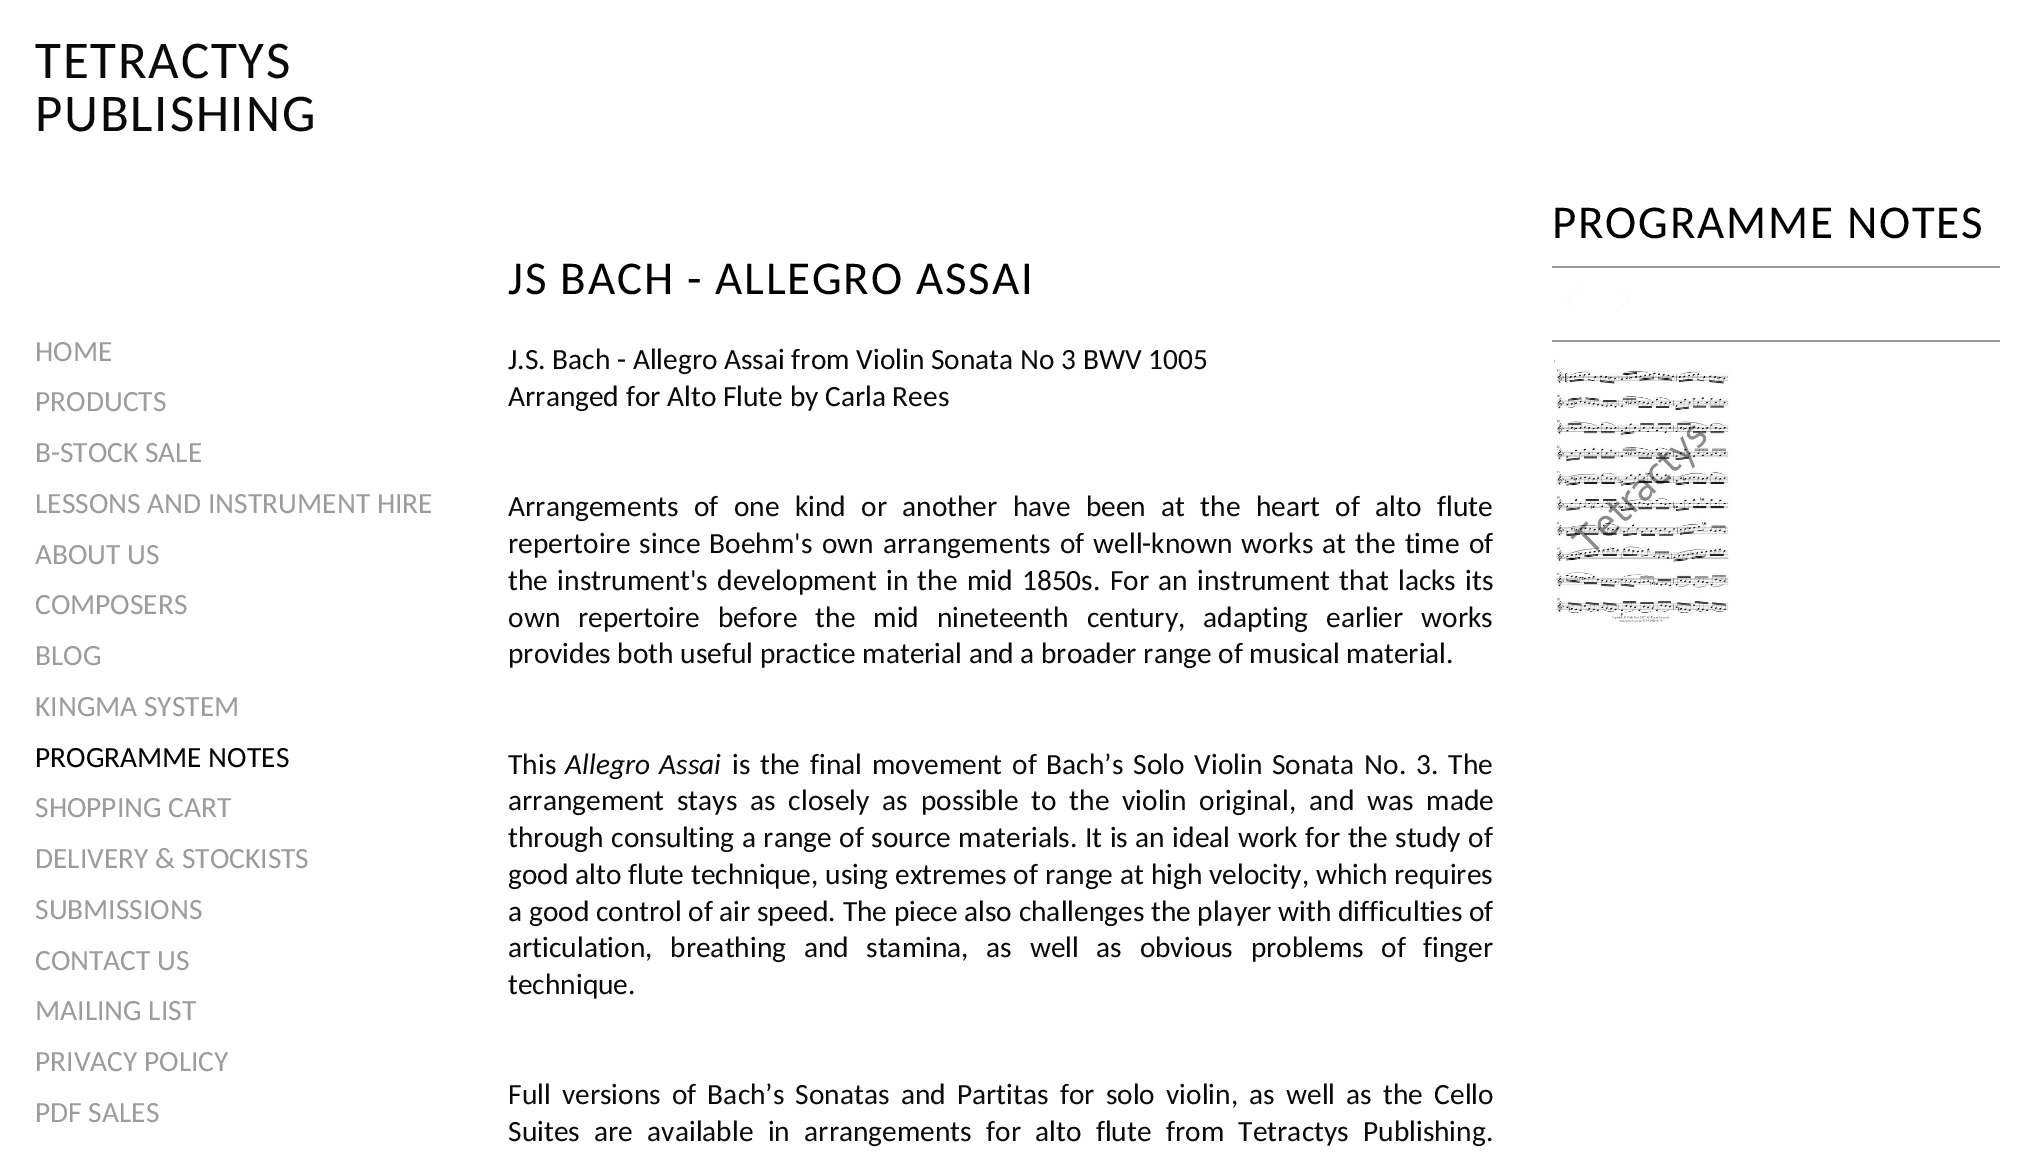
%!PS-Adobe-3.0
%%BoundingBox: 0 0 2041 1153
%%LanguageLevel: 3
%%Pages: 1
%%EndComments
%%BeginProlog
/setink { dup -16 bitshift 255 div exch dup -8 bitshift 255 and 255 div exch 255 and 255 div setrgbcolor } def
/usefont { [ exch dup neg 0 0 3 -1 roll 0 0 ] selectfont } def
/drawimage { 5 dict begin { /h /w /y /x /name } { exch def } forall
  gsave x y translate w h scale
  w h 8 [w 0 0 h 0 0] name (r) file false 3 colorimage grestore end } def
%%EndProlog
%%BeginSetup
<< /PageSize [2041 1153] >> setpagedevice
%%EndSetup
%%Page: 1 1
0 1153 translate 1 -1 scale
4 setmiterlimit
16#FFFFFF setink
0 0 2041 1153 rectfill
/Carlito-Regular 53 usefont
16#0A0A0A setink
35 78 moveto 1.75 0 (TETRACTYS) ashow
35 131 moveto 1.75 0 (PUBLISHING) ashow
/Carlito-Regular 29.4 usefont
16#9C9C9C setink
[
    [(HOME) 35 361]
    [(PRODUCTS) 35 411]
    [(B-STOCK SALE) 35 462]
    [(LESSONS AND INSTRUMENT HIRE) 35 513]
    [(ABOUT US) 35 564]
    [(COMPOSERS) 35 614]
    [(BLOG) 35 665]
    [(KINGMA SYSTEM) 35 716]
] { aload pop moveto show } forall
16#000000 setink
35 767 moveto (PROGRAMME NOTES) show
16#9C9C9C setink
[
    [(SHOPPING CART) 35 817]
    [(DELIVERY & STOCKISTS) 35 868]
    [(SUBMISSIONS) 35 919]
    [(CONTACT US) 35 970]
    [(MAILING LIST) 35 1020]
    [(PRIVACY POLICY) 35 1071]
    [(PDF SALES) 35 1122]
] { aload pop moveto show } forall
/Carlito-Regular 47 usefont
16#000000 setink
1552 238 moveto 1.75 0 (PROGRAMME NOTES) ashow
16#9C9C9C setink
1552 266 448 2 rectfill
1552 340 448 2 rectfill
(img1.raw) 1566 286 14 21 drawimage
(img2.raw) 1615 291 14 22 drawimage
(img3.raw) 1553 359 178 264 drawimage
16#000000 setink
508 294 moveto 1.75 0 (JS BACH - ALLEGRO ASSAI) ashow
/Carlito-Regular 29.4 usefont
16#0A0A0A setink
508 369 moveto (J.S. Bach - Allegro Assai from Violin Sonata No 3 BWV 1005) show
508 406 moveto (Arranged for Alto Flute by Carla Rees) show
508 516 moveto 8.75 0 32 (Arrangements of one kind or another have been at the heart of alto flute) widthshow
508 553 moveto 2.6 0 32 (repertoire since Boehm's own arrangements of well-known works at the time of) widthshow
508 590 moveto 2.75 0 32 (the instrument's development in the mid 1850s. For an instrument that lacks its) widthshow
508 627 moveto 11.25 0 32 (own repertoire before the mid nineteenth century, adapting earlier works) widthshow
508 663 moveto (provides both useful practice material and a broader range of musical material.) show
508 774 moveto (This) show
/Carlito-Italic 29.4 usefont
565 774 moveto 3 0 32 (Allegro Assai) widthshow
/Carlito-Regular 29.4 usefont
732 774 moveto 3.25 0 32 (is the final movement of Bach’s Solo Violin Sonata No. 3. The) widthshow
508 810 moveto 6.25 0 32 (arrangement stays as closely as possible to the violin original, and was made) widthshow
508 847 moveto 0.9 0 32 (through consulting a range of source materials. It is an ideal work for the study of) widthshow
508 884 moveto 0.25 0 32 (good alto flute technique, using extremes of range at high velocity, which requires) widthshow
508 921 moveto (a good control of air speed. The piece also challenges the player with difficulties of) show
508 957 moveto 11 0 32 (articulation, breathing and stamina, as well as obvious problems of finger) widthshow
508 994 moveto (technique.) show
508 1104 moveto 4.6 0 32 (Full versions of Bach’s Sonatas and Partitas for solo violin, as well as the Cello) widthshow
508 1141 moveto 7.75 0 32 (Suites are available in arrangements for alto flute from Tetractys Publishing.) widthshow
showpage
%%EOF
